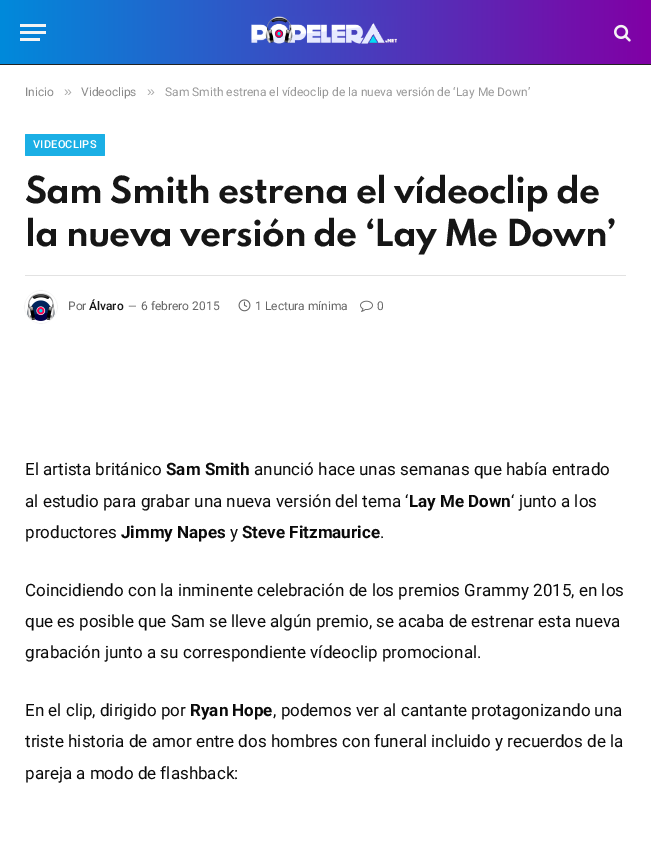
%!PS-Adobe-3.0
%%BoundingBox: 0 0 651 843
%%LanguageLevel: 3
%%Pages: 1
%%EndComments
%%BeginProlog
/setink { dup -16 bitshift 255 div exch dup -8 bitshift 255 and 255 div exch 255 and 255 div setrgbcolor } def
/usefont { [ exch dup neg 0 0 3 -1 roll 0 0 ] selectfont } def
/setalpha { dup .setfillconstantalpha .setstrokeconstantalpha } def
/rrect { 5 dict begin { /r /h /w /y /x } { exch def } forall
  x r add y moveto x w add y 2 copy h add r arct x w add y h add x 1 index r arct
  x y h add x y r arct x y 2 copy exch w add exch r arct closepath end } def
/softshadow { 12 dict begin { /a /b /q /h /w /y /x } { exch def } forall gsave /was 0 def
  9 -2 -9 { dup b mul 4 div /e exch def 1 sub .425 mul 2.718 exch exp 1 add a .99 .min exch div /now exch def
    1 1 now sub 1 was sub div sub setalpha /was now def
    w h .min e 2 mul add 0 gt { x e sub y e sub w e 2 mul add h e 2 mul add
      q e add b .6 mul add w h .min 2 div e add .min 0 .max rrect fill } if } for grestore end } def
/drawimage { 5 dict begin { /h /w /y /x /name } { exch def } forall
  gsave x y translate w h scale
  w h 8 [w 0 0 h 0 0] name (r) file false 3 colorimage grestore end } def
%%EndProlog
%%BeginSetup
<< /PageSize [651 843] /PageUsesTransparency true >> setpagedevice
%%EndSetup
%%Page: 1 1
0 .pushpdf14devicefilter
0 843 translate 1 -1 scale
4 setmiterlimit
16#FFFFFF setink
0 0 651 843 rectfill
gsave 0 0 moveto 651 0 lineto 651 64 lineto 0 64 lineto closepath clip newpath
<< /ShadingType 2 /ColorSpace /DeviceRGB /Coords [0 32 651 32] /Extend [true true] /Function << /FunctionType 2 /Domain [0 1] /C0 [0 0.541 0.859] /C1 [0.506 0 0.647] /N 1 >> >> shfill grestore
[
    [0 64 651 1 16#222222]
    [20 38 20 3 16#F4F4F4]
    [20 24 26 3 16#F4F4F4]
    [20 31 26 3 16#F4F4F4]
] { aload pop setink rectfill } forall
(img1.raw) 251 16 146 28 drawimage
(img2.raw) 614 24 17 18 drawimage
/Roboto-Regular 12 usefont
16#8A8A8A setink
25 96 moveto (Inicio) show
/LiberationSans-Regular 14 usefont
16#ADADAD setink
64 96 moveto (») show
/Roboto-Regular 12 usefont
16#8A8A8A setink
81 96 moveto (Videoclips) show
/LiberationSans-Regular 14 usefont
16#ADADAD setink
147 96 moveto (») show
/Roboto-Regular 12 usefont
16#999999 setink
165 96 moveto (Sam Smith estrena el vídeoclip de la nueva versión de ‘Lay Me Down’) show
16#1BAFE5 setink
25 134 80 22 1 rrect fill
/Roboto-Medium 11 usefont
16#FFFFFF setink
33 148 moveto 0.25 0 (VIDEOCLIPS) ashow
/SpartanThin-Bold 33 usefont
16#161616 setink
25 203 moveto -1 0 (Sam Smith estrena el vídeoclip de) ashow
25 246 moveto -1 0 (la nueva versión de ‘Lay Me Down’) ashow
16#E2E2E2 setink
25 275 601 1 rectfill
16#000000 setink
25 291 32 32 16 0.5 0.2 softshadow
(img3.raw) 25 291 32 32 drawimage
/Roboto-Regular 12 usefont
16#666666 setink
68 310 moveto (Por) show
/Roboto-Medium 12 usefont
16#161616 setink
89 310 moveto (Álvaro) show
/Roboto-Regular 11 usefont
16#666666 setink
128 310 moveto (—) show
/Roboto-Regular 12 usefont
141 310 moveto (6 febrero 2015) show
(img4.raw) 238 299 13 13 drawimage
255 310 moveto (1 Lectura mínima) show
(img5.raw) 360 300 13 12 drawimage
377 310 moveto (0) show
/Roboto-Regular 17 usefont
16#0A0A0A setink
25 475 moveto (El artista británico) show
/Roboto-Bold 17 usefont
166 475 moveto (Sam Smith) show
/Roboto-Regular 17 usefont
254 475 moveto (anunció hace unas semanas que había entrado) show
25 507 moveto (al estudio para grabar una nueva versión del tema ‘) show
/Roboto-Bold 17 usefont
409 507 moveto (Lay Me Down) show
/Roboto-Regular 17 usefont
511 507 moveto (‘ junto a los) show
25 538 moveto (productores) show
/Roboto-Bold 17 usefont
121 538 moveto (Jimmy Napes) show
/Roboto-Regular 17 usefont
230 538 moveto (y) show
/Roboto-Bold 17 usefont
242 538 moveto (Steve Fitzmaurice) show
/Roboto-Regular 17 usefont
[
    [(.) 380 538]
    [(Coincidiendo con la inminente celebración de los premios Grammy 2015, en los) 25 596]
    [(que es posible que Sam se lleve algún premio, se acaba de estrenar esta nueva) 25 627]
    [(grabación junto a su correspondiente vídeoclip promocional.) 25 658]
    [(En el clip, dirigido por) 25 716]
] { aload pop moveto show } forall
/Roboto-Bold 17 usefont
190 716 moveto (Ryan Hope) show
/Roboto-Regular 17 usefont
[
    [(, podemos ver al cantante protagonizando una) 273 716]
    [(triste historia de amor entre dos hombres con funeral incluido y recuerdos de la) 25 747]
    [(pareja a modo de flashback:) 25 779]
] { aload pop moveto show } forall
.poppdf14devicefilter showpage
%%EOF
